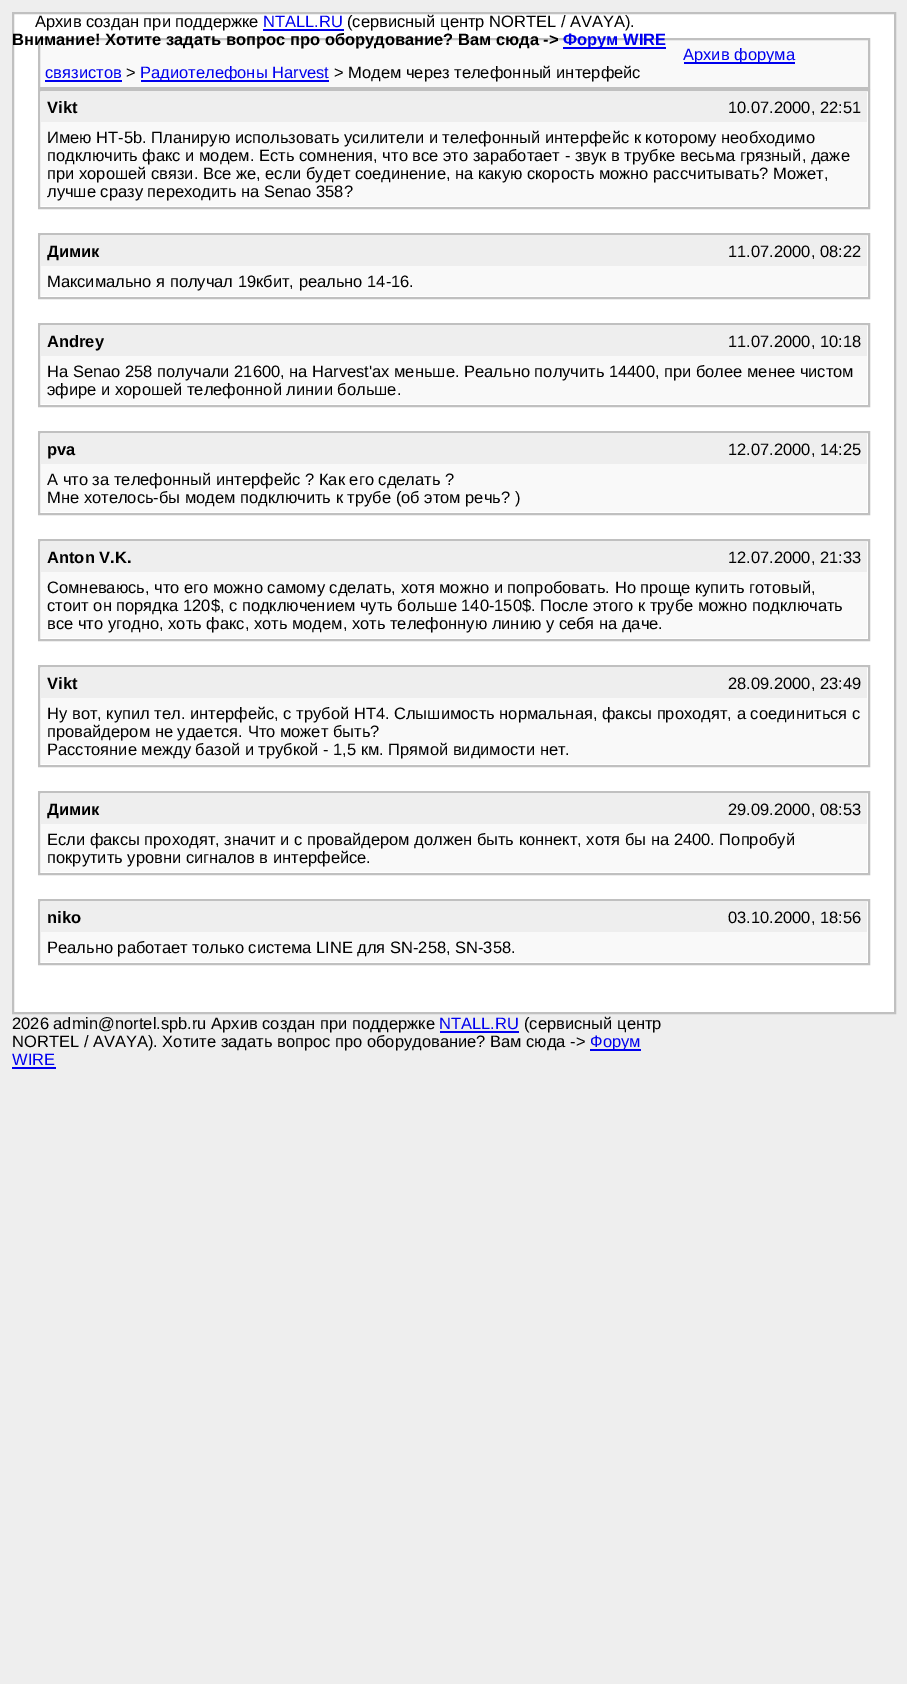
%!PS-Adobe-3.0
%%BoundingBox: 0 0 907 1684
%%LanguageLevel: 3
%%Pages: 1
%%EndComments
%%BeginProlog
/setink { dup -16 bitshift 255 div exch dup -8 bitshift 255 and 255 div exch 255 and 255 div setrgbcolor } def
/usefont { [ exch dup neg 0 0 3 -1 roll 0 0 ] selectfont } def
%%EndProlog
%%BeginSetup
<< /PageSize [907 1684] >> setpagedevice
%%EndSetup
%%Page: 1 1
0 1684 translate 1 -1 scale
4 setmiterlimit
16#EEEEEE setink
0 0 907 1684 rectfill
16#FFFFFF setink
13 13 moveto 895 13 lineto 895 1013 lineto 13 1013 lineto closepath gsave fill grestore
16#C0C0C0 setink
2 setlinewidth
stroke
/LiberationSans-Regular 16.5 usefont
16#000000 setink
35 27 moveto (Архив создан при поддержке) show
16#0000EE setink
263 27 moveto (NTALL.RU) show
263 29 81 2 rectfill
16#000000 setink
347 27 moveto (\(сервисный центр NORTEL / AVAYA\).) show
16#F9F9F9 setink
39 39 moveto 869 39 lineto 869 88 lineto 39 88 lineto closepath gsave fill grestore
16#C0C0C0 setink
stroke
/LiberationSans-Bold 16.5 usefont
16#000000 setink
12 45 moveto (Внимание! Хотите задать вопрос про оборудование? Вам сюда ->) show
16#0000EE setink
563 47 103 2 rectfill
563 45 moveto (Форум WIRE) show
684 62 111 2 rectfill
/LiberationSans-Regular 16.5 usefont
683 60 moveto (Архив форума) show
45 78 moveto (связистов) show
45 80 77 2 rectfill
16#000000 setink
126 78 moveto (>) show
16#0000EE setink
141 80 188 2 rectfill
140 78 moveto (Радиотелефоны Harvest) show
16#000000 setink
334 78 moveto (> Модем через телефонный интерфейс) show
16#C0C0C0 setink
39 90 830 118 rectstroke
16#EEEEEE setink
41 92 826 30 rectfill
/LiberationSans-Bold 16.5 usefont
16#000000 setink
47 113 moveto (Vikt) show
/LiberationSans-Regular 16.5 usefont
728 113 moveto (10.07.2000, 22:51) show
16#F9F9F9 setink
41 122 826 84 rectfill
16#000000 setink
[
    [(Имею HT-5b. Планирую использовать усилители и телефонный интерфейс к которому необходимо) 47 143]
    [(подключить факс и модем. Есть сомнения, что все это заработает - звук в трубке весьма грязный, даже) 47 161]
    [(при хорошей связи. Все же, если будет соединение, на какую скорость можно рассчитывать? Может,) 47 179]
    [(лучше сразу переходить на Senao 358?) 47 197]
] { aload pop moveto show } forall
16#C0C0C0 setink
39 234 830 64 rectstroke
16#EEEEEE setink
41 236 826 30 rectfill
/LiberationSans-Bold 16.5 usefont
16#000000 setink
47 257 moveto (Димик) show
/LiberationSans-Regular 16.5 usefont
728 257 moveto (11.07.2000, 08:22) show
16#F9F9F9 setink
41 266 826 30 rectfill
16#000000 setink
47 287 moveto (Максимально я получал 19кбит, реально 14-16.) show
16#C0C0C0 setink
39 324 830 82 rectstroke
16#EEEEEE setink
41 326 826 30 rectfill
/LiberationSans-Bold 16.5 usefont
16#000000 setink
47 347 moveto (Andrey) show
/LiberationSans-Regular 16.5 usefont
728 347 moveto (11.07.2000, 10:18) show
16#F9F9F9 setink
41 356 826 48 rectfill
16#000000 setink
47 377 moveto (На Senao 258 получали 21600, на Harvest'ах меньше. Реально получить 14400, при более менее чистом) show
47 395 moveto (эфире и хорошей телефонной линии больше.) show
16#C0C0C0 setink
39 432 830 82 rectstroke
16#EEEEEE setink
41 434 826 30 rectfill
/LiberationSans-Bold 16.5 usefont
16#000000 setink
47 455 moveto (pva) show
/LiberationSans-Regular 16.5 usefont
728 455 moveto (12.07.2000, 14:25) show
16#F9F9F9 setink
41 464 826 48 rectfill
16#000000 setink
47 485 moveto (А что за телефонный интерфейс ? Как его сделать ?) show
47 503 moveto (Мне хотелось-бы модем подключить к трубе \(об этом речь? \)) show
16#C0C0C0 setink
39 540 830 100 rectstroke
16#EEEEEE setink
41 542 826 30 rectfill
/LiberationSans-Bold 16.5 usefont
16#000000 setink
47 563 moveto (Anton V.K.) show
/LiberationSans-Regular 16.5 usefont
728 563 moveto (12.07.2000, 21:33) show
16#F9F9F9 setink
41 572 826 66 rectfill
16#000000 setink
[
    [(Сомневаюсь, что его можно самому сделать, хотя можно и попробовать. Но проще купить готовый,) 47 593]
    [(стоит он порядка 120$, с подключением чуть больше 140-150$. После этого к трубе можно подключать) 47 611]
    [(все что угодно, хоть факс, хоть модем, хоть телефонную линию у себя на даче.) 47 629]
] { aload pop moveto show } forall
16#C0C0C0 setink
39 666 830 100 rectstroke
16#EEEEEE setink
41 668 826 30 rectfill
/LiberationSans-Bold 16.5 usefont
16#000000 setink
47 689 moveto (Vikt) show
/LiberationSans-Regular 16.5 usefont
728 689 moveto (28.09.2000, 23:49) show
16#F9F9F9 setink
41 698 826 66 rectfill
16#000000 setink
[
    [(Ну вот, купил тел. интерфейс, с трубой HT4. Слышимость нормальная, факсы проходят, а соединиться с) 47 719]
    [(провайдером не удается. Что может быть?) 47 737]
    [(Расстояние между базой и трубкой - 1,5 км. Прямой видимости нет.) 47 755]
] { aload pop moveto show } forall
16#C0C0C0 setink
39 792 830 82 rectstroke
16#EEEEEE setink
41 794 826 30 rectfill
/LiberationSans-Bold 16.5 usefont
16#000000 setink
47 815 moveto (Димик) show
/LiberationSans-Regular 16.5 usefont
728 815 moveto (29.09.2000, 08:53) show
16#F9F9F9 setink
41 824 826 48 rectfill
16#000000 setink
47 845 moveto (Если факсы проходят, значит и с провайдером должен быть коннект, хотя бы на 2400. Попробуй) show
47 863 moveto (покрутить уровни сигналов в интерфейсе.) show
16#C0C0C0 setink
39 900 830 64 rectstroke
16#EEEEEE setink
41 902 826 30 rectfill
/LiberationSans-Bold 16.5 usefont
16#000000 setink
47 923 moveto (niko) show
/LiberationSans-Regular 16.5 usefont
728 923 moveto (03.10.2000, 18:56) show
16#F9F9F9 setink
41 932 826 30 rectfill
16#000000 setink
47 953 moveto (Реально работает только система LINE для SN-258, SN-358.) show
12 1029 moveto (2026 admin@nortel.spb.ru Архив создан при поддержке) show
16#0000EE setink
439 1029 moveto (NTALL.RU) show
440 1031 79 2 rectfill
16#000000 setink
524 1029 moveto (\(сервисный центр) show
12 1047 moveto (NORTEL / AVAYA\). Хотите задать вопрос про оборудование? Вам сюда ->) show
16#0000EE setink
590 1049 51 2 rectfill
590 1047 moveto (Форум) show
12 1065 moveto (WIRE) show
12 1067 44 2 rectfill
showpage
%%EOF
